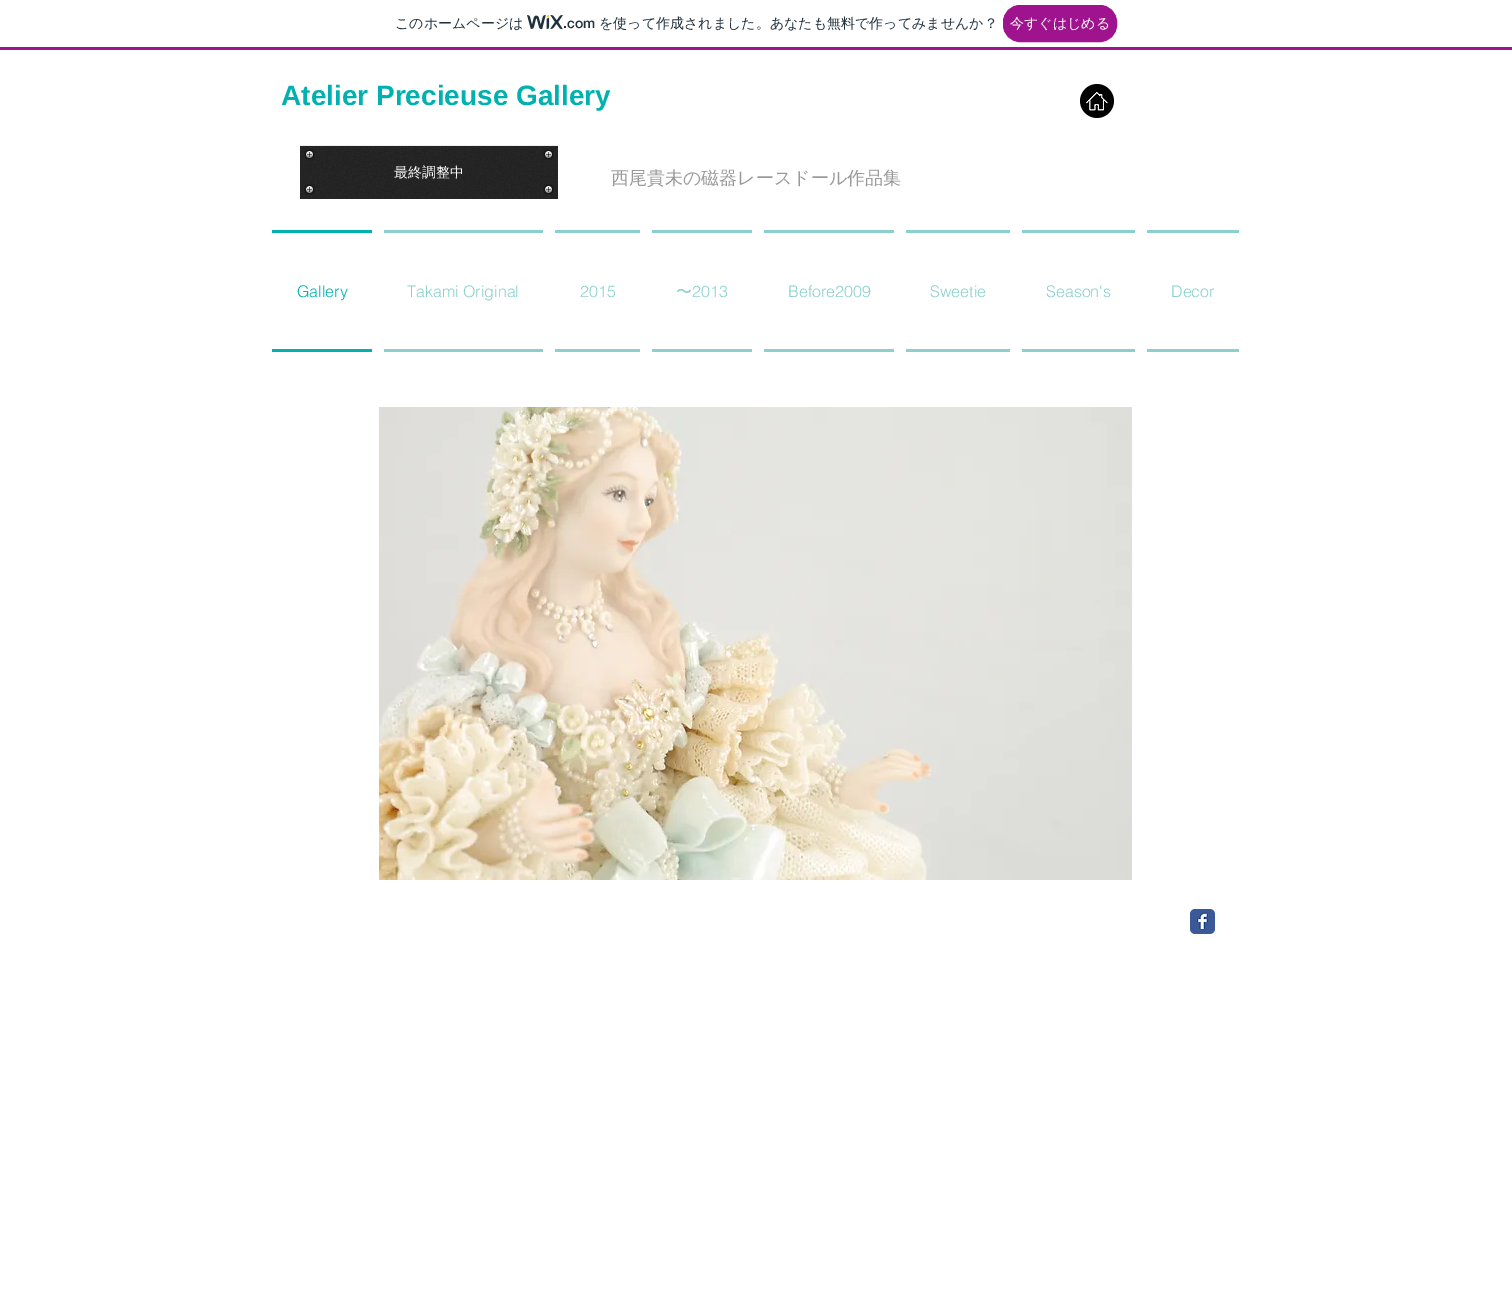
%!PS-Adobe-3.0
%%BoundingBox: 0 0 1512 1297
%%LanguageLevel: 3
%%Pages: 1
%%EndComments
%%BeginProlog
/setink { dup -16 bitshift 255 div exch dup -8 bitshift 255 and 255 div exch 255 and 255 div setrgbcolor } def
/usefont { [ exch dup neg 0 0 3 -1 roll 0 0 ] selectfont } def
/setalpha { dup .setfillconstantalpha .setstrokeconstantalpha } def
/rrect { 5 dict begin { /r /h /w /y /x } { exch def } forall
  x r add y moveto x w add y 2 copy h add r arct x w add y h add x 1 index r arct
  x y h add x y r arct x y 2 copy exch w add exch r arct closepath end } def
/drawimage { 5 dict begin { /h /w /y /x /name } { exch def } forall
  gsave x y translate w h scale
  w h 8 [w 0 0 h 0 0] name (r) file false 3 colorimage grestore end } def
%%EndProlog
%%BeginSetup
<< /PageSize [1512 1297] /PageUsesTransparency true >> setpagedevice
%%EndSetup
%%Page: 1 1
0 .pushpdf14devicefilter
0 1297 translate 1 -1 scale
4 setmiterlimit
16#FFFFFF setink
0 0 1512 1297 rectfill
16#A0138E setink
0 47 1512 3 rectfill
/WenQuanYiZenHei-Medium 14 usefont
16#20303C setink
395 28 moveto (このホームページは) show
(img1.raw) 527 15 36 15 drawimage
/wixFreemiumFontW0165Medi-Medium 14 usefont
563 28 moveto (.com) show
/WenQuanYiZenHei-Medium 14 usefont
599 28 moveto (を使って作成されました。あなたも無料で作ってみませんか？) show
16#A0138E setink
1003.5 5.5 113 36 16.5 rrect gsave fill grestore
stroke
16#FFFFFF setink
1010 28 moveto (今すぐはじめる) show
/LiberationSans-Bold 28 usefont
16#01B1AF setink
281 105 moveto (Atelier Precieuse Gallery) show
(img2.raw) 1080 84 34 34 drawimage
16#232323 setink
300 145 258 54 rectfill
(img3.raw) 300 145 258 54 drawimage
0.92 setalpha
16#FFFFFF setink
300 145 258 1 rectfill
1 setalpha
(img4.raw) 304 149 11 11 drawimage
(img5.raw) 543 149 11 11 drawimage
/WenQuanYiZenHei-Medium 14 usefont
394 177 moveto (最終調整中) show
(img6.raw) 304 184 11 11 drawimage
(img7.raw) 543 184 11 11 drawimage
/WenQuanYiZenHei-Medium 18 usefont
16#999999 setink
611 184 moveto (西尾貴未の磁器レースドール作品集) show
16#01B1AF setink
272 230 100 3 rectfill
272 349 100 3 rectfill
/helvetica-Light 16 usefont
297 297 moveto (Gallery) show
16#8BD0CD setink
384 230 159 3 rectfill
384 349 159 3 rectfill
407 297 moveto (Takami Original) show
555 230 85 3 rectfill
555 349 85 3 rectfill
580 297 moveto (2015) show
652 230 100 3 rectfill
652 349 100 3 rectfill
/WenQuanYiZenHei-Medium 16 usefont
676 297 moveto (〜) show
/helvetica-Light 16 usefont
692 297 moveto (2013) show
764 230 130 3 rectfill
764 349 130 3 rectfill
788 297 moveto (Before2009) show
906 230 104 3 rectfill
906 349 104 3 rectfill
930 297 moveto (Sweetie) show
1022 230 113 3 rectfill
1022 349 113 3 rectfill
1046 297 moveto (Season's) show
1147 230 92 3 rectfill
1147 349 92 3 rectfill
1171 297 moveto (Decor) show
(img8.raw) 379 407 753 473 drawimage
(img9.raw) 1190 909 25 25 drawimage
.poppdf14devicefilter showpage
%%EOF
